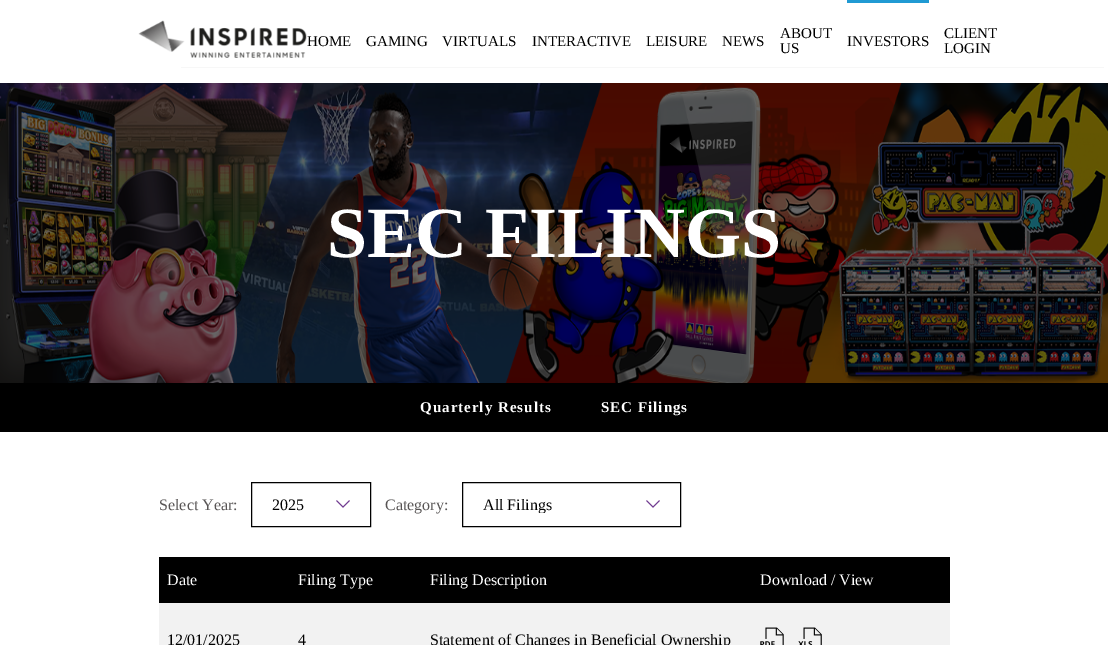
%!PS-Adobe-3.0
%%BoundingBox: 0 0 1108 645
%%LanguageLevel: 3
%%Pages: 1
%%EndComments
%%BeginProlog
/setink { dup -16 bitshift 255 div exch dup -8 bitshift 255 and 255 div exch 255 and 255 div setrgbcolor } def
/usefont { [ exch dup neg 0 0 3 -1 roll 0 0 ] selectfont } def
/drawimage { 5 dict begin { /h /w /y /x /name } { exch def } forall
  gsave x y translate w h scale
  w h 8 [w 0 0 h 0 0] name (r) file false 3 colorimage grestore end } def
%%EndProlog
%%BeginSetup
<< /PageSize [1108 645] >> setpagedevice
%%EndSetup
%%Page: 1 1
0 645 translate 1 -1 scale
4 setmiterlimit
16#FFFFFF setink
0 0 1108 645 rectfill
(img1.raw) 138 20 169 38 drawimage
/LiberationSerif-Regular 15 usefont
16#000000 setink
[
    [(HOME) 307 46]
    [(GAMING) 366 46]
    [(VIRTUALS) 442 46]
    [(INTERACTIVE) 532 46]
    [(LEISURE) 646 46]
    [(NEWS) 722 46]
    [(ABOUT) 780 38]
    [(US) 780 53]
] { aload pop moveto show } forall
16#209AD3 setink
847 0 82 3 rectfill
16#000000 setink
[
    [(INVESTORS) 847 46]
    [(CLIENT) 944 38]
    [(LOGIN) 944 53]
] { aload pop moveto show } forall
16#F7F7F7 setink
181 67 923 1 rectfill
(img2.raw) 0 83 1108 300 drawimage
/LiberationSerif-Bold 72 usefont
16#FFFFFF setink
327 257 moveto (SEC FILINGS) show
16#000000 setink
0 383 1108 49 rectfill
/LiberationSerif-Bold 15 usefont
16#FFFFFF setink
420 412 moveto 1 0 (Quarterly Results) ashow
601 412 moveto 1 0 (SEC Filings) ashow
/LiberationSerif-Regular 16 usefont
16#585555 setink
159 510 moveto (Select Year:) show
(img3.raw) 336 500 14 8 drawimage
16#000000 setink
251.5 482.5 119 44 rectstroke
272 510 moveto (2025) show
16#585555 setink
385 510 moveto (Category:) show
(img3.raw) 646 500 14 8 drawimage
16#000000 setink
462.5 482.5 218 44 rectstroke
gsave
483 496 153 17 rectclip
483 510 moveto (All Filings) show
grestore
159 557 791 46 rectfill
16#FFFFFF setink
[
    [(Date) 167 585]
    [(Filing Type) 298 585]
    [(Filing Description) 430 585]
    [(Download / View) 760 585]
] { aload pop moveto show } forall
16#F2F2F2 setink
159 603 791 42 rectfill
16#000000 setink
[
    [(12/01/2025) 167 645]
    [(4) 298 645]
    [(Statement of Changes in Beneficial Ownership) 430 645]
] { aload pop moveto show } forall
(img4.raw) 760 627 24 18 drawimage
(img5.raw) 798 627 24 18 drawimage
showpage
%%EOF
